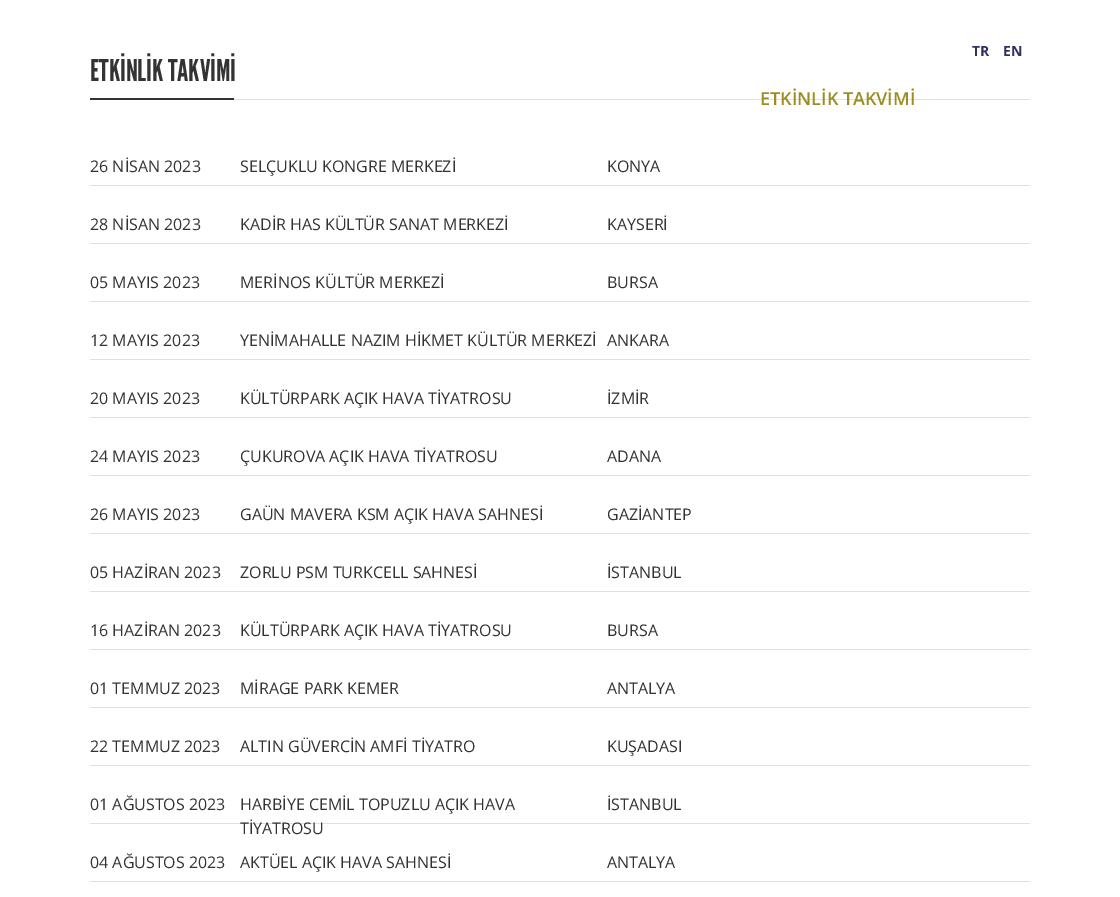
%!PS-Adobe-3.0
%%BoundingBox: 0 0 1120 897
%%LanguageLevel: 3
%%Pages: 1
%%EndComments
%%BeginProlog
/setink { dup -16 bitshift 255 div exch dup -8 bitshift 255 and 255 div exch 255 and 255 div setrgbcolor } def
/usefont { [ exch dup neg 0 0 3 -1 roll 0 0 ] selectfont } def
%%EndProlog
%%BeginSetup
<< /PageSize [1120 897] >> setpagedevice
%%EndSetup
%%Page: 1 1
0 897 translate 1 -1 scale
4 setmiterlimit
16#FFFFFF setink
0 0 1120 897 rectfill
16#E0E0E0 setink
234 99 796 1 rectfill
/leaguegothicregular-Regular 30 usefont
16#333333 setink
90 81 moveto (ETKİNLİK TAKVİMİ) show
90 98 144 2 rectfill
16#E0E0E0 setink
90 185 940 1 rectfill
/OpenSans-Regular 16 usefont
16#333333 setink
[
    [(26 NİSAN 2023) 90 172]
    [(SELÇUKLU KONGRE MERKEZİ) 240 172]
    [(KONYA) 607 172]
] { aload pop moveto show } forall
16#E0E0E0 setink
90 243 940 1 rectfill
16#333333 setink
[
    [(28 NİSAN 2023) 90 230]
    [(KADİR HAS KÜLTÜR SANAT MERKEZİ) 240 230]
    [(KAYSERİ) 607 230]
] { aload pop moveto show } forall
16#E0E0E0 setink
90 301 940 1 rectfill
16#333333 setink
[
    [(05 MAYIS 2023) 90 288]
    [(MERİNOS KÜLTÜR MERKEZİ) 240 288]
    [(BURSA) 607 288]
] { aload pop moveto show } forall
16#E0E0E0 setink
90 359 940 1 rectfill
16#333333 setink
[
    [(12 MAYIS 2023) 90 346]
    [(YENİMAHALLE NAZIM HİKMET KÜLTÜR MERKEZİ) 240 346]
    [(ANKARA) 607 346]
] { aload pop moveto show } forall
16#E0E0E0 setink
90 417 940 1 rectfill
16#333333 setink
[
    [(20 MAYIS 2023) 90 404]
    [(KÜLTÜRPARK AÇIK HAVA TİYATROSU) 240 404]
    [(İZMİR) 607 404]
] { aload pop moveto show } forall
16#E0E0E0 setink
90 475 940 1 rectfill
16#333333 setink
[
    [(24 MAYIS 2023) 90 462]
    [(ÇUKUROVA AÇIK HAVA TİYATROSU) 240 462]
    [(ADANA) 607 462]
] { aload pop moveto show } forall
16#E0E0E0 setink
90 533 940 1 rectfill
16#333333 setink
[
    [(26 MAYIS 2023) 90 520]
    [(GAÜN MAVERA KSM AÇIK HAVA SAHNESİ) 240 520]
    [(GAZİANTEP) 607 520]
] { aload pop moveto show } forall
16#E0E0E0 setink
90 591 940 1 rectfill
16#333333 setink
[
    [(05 HAZİRAN 2023) 90 578]
    [(ZORLU PSM TURKCELL SAHNESİ) 240 578]
    [(İSTANBUL) 607 578]
] { aload pop moveto show } forall
16#E0E0E0 setink
90 649 940 1 rectfill
16#333333 setink
[
    [(16 HAZİRAN 2023) 90 636]
    [(KÜLTÜRPARK AÇIK HAVA TİYATROSU) 240 636]
    [(BURSA) 607 636]
] { aload pop moveto show } forall
16#E0E0E0 setink
90 707 940 1 rectfill
16#333333 setink
[
    [(01 TEMMUZ 2023) 90 694]
    [(MİRAGE PARK KEMER) 240 694]
    [(ANTALYA) 607 694]
] { aload pop moveto show } forall
16#E0E0E0 setink
90 765 940 1 rectfill
16#333333 setink
[
    [(22 TEMMUZ 2023) 90 752]
    [(ALTIN GÜVERCİN AMFİ TİYATRO) 240 752]
    [(KUŞADASI) 607 752]
] { aload pop moveto show } forall
16#E0E0E0 setink
90 823 940 1 rectfill
16#333333 setink
[
    [(01 AĞUSTOS 2023) 90 810]
    [(HARBİYE CEMİL TOPUZLU AÇIK HAVA) 240 810]
    [(TİYATROSU) 240 834]
    [(İSTANBUL) 607 810]
] { aload pop moveto show } forall
16#E0E0E0 setink
90 881 940 1 rectfill
16#333333 setink
[
    [(04 AĞUSTOS 2023) 90 868]
    [(AKTÜEL AÇIK HAVA SAHNESİ) 240 868]
    [(ANTALYA) 607 868]
] { aload pop moveto show } forall
/OpenSans-Bold 14 usefont
16#2C3260 setink
972 56 moveto (TR) show
1003 56 moveto (EN) show
/OpenSans-SemiBold 18 usefont
16#9B8D23 setink
760 105 moveto (ETKİNLİK TAKVİMİ) show
showpage
%%EOF
